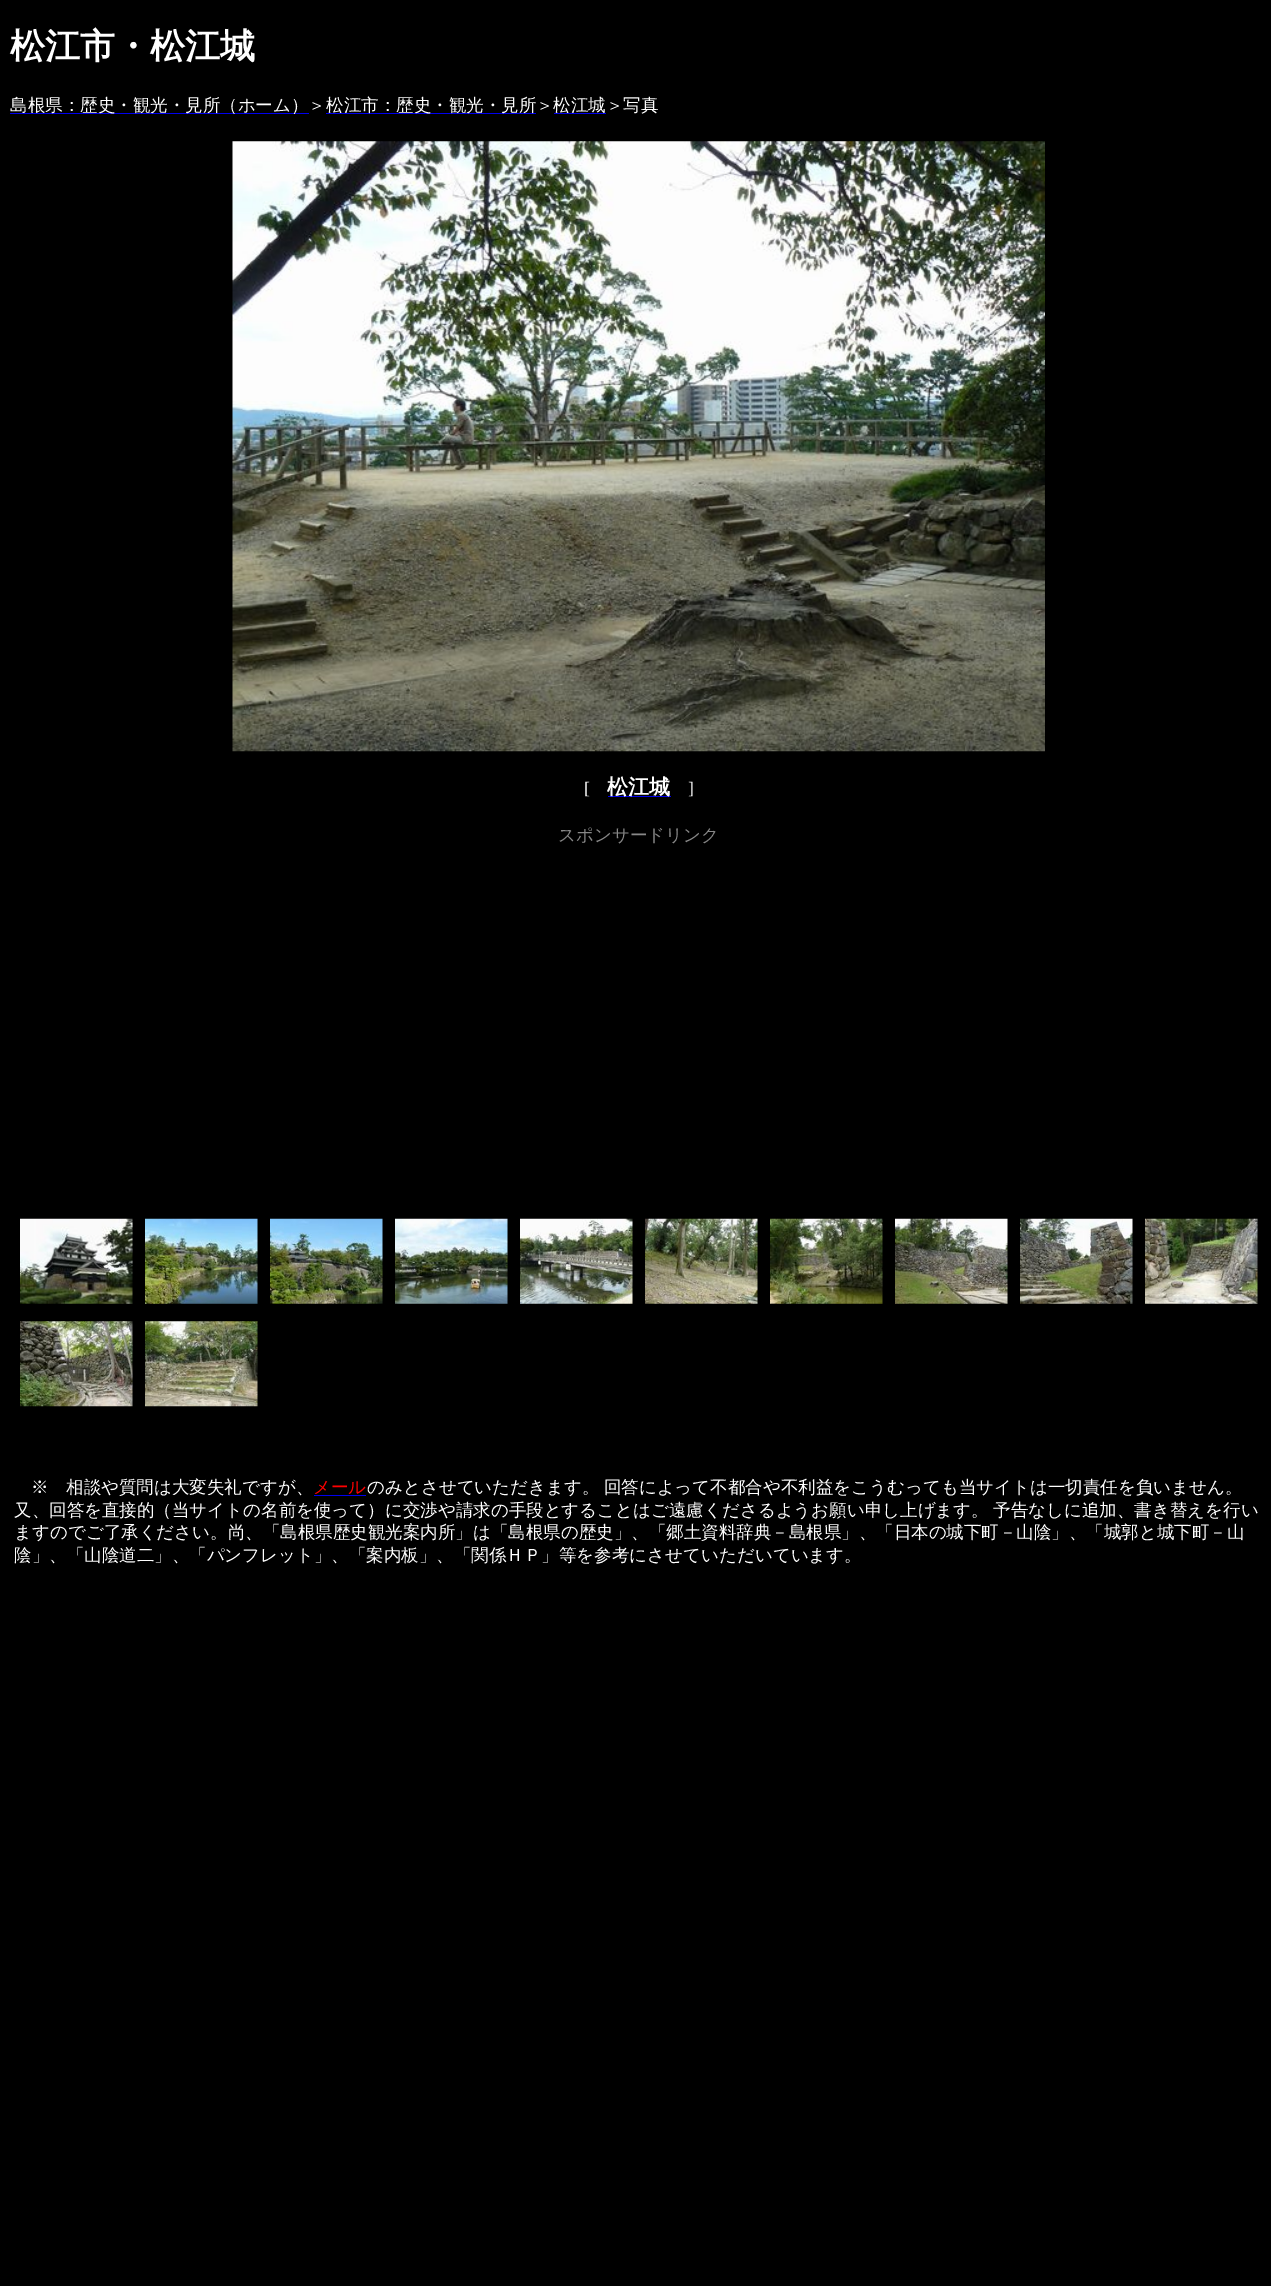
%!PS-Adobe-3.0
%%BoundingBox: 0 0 1271 2286
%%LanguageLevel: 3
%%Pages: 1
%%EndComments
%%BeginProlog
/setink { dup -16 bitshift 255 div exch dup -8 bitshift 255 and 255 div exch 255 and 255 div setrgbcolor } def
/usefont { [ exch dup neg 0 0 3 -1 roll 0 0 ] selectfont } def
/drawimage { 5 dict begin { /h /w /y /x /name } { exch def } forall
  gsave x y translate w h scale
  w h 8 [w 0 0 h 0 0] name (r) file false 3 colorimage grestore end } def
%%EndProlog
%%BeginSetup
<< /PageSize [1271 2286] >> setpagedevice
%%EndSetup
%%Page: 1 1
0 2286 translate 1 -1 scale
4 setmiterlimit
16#000000 setink
0 0 1271 2286 rectfill
/WenQuanYiZenHei-Bold 35 usefont
16#FFFFFF setink
10 58 moveto (松江市・松江城) show
16#0000EE setink
10 113 299 1 rectfill
/WenQuanYiZenHei-Medium 17.5 usefont
16#FFFFFF setink
10 111 moveto (島根県：歴史・観光・見所（ホーム）＞) show
16#0000EE setink
326 113 210 1 rectfill
16#FFFFFF setink
326 111 moveto (松江市：歴史・観光・見所＞) show
16#0000EE setink
554 113 52 1 rectfill
16#FFFFFF setink
553 111 moveto (松江城＞写真) show
(img1.raw) 232 141 813 611 drawimage
/LiberationSerif-Regular 17.5 usefont
584 794 moveto ([) show
16#0000EE setink
608 796 63 1 rectfill
/WenQuanYiZenHei-Bold 21 usefont
16#FFFFFF setink
607 794 moveto (松江城) show
/LiberationSerif-Regular 17.5 usefont
688 794 moveto (]) show
/WenQuanYiZenHei-Medium 17.5 usefont
16#888888 setink
558 841 moveto (スポンサードリンク) show
(img2.raw) 20 1218 113 86 drawimage
(img3.raw) 145 1218 113 86 drawimage
(img4.raw) 270 1218 113 86 drawimage
(img5.raw) 395 1218 113 86 drawimage
(img6.raw) 520 1218 113 86 drawimage
(img7.raw) 645 1218 113 86 drawimage
(img8.raw) 770 1218 113 86 drawimage
(img9.raw) 895 1218 113 86 drawimage
(img10.raw) 1020 1218 113 86 drawimage
(img11.raw) 1145 1218 113 86 drawimage
(img12.raw) 20 1321 113 86 drawimage
(img13.raw) 145 1321 113 86 drawimage
16#FFFFFF setink
31 1493 moveto (※　相談や質問は大変失礼ですが、) show
16#FF0000 setink
313 1493 moveto (メール) show
16#0000EE setink
314 1495 52 1 rectfill
16#FFFFFF setink
367 1493 moveto -1 0 32 (のみとさせていただきます。 回答によって不都合や不利益をこうむっても当サイトは一切責任を負いません。) widthshow
14 1516 moveto -1 0 32 (又、回答を直接的（当サイトの名前を使って）に交渉や請求の手段とすることはご遠慮くださるようお願い申し上げます。 予告なしに追加、書き替えを行い) widthshow
14 1538 moveto (ますのでご了承ください。尚、「島根県歴史観光案内所」は「島根県の歴史」、「郷土資料辞典－島根県」、「日本の城下町－山陰」、「城郭と城下町－山) show
14 1561 moveto (陰」、「山陰道二」、「パンフレット」、「案内板」、「関係ＨＰ」等を参考にさせていただいています。) show
showpage
%%EOF
